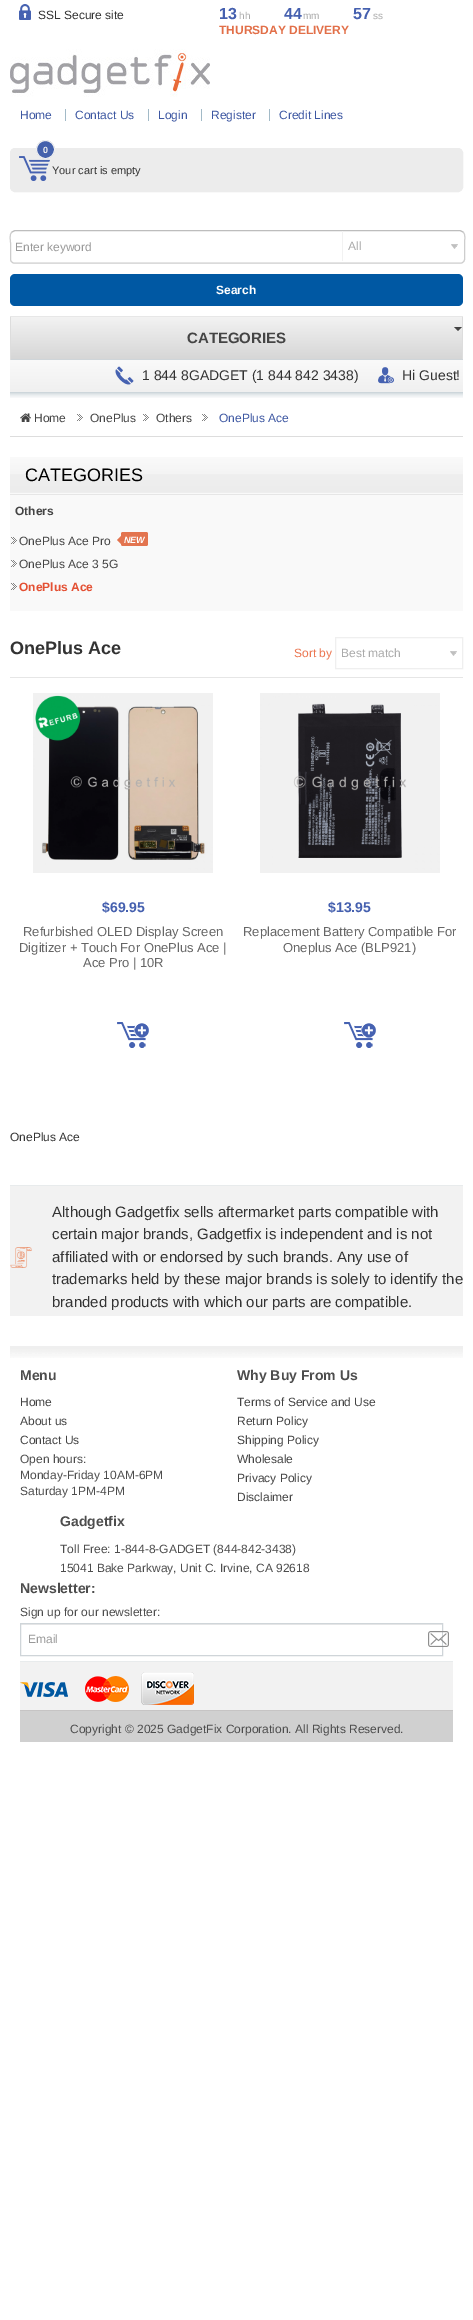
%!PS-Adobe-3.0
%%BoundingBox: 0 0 473 2320
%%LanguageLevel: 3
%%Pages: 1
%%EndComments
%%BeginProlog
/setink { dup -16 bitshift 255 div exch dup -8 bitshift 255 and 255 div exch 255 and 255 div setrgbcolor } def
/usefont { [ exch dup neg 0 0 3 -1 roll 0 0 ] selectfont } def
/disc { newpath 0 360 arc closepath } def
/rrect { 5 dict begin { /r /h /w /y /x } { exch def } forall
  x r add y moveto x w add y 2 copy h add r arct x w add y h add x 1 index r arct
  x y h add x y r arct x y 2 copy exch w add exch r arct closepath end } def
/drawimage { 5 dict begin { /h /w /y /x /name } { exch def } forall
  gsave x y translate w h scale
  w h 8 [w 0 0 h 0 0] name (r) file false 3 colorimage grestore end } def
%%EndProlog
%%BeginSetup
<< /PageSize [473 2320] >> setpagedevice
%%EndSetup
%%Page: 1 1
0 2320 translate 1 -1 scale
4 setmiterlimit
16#FFFFFF setink
0 0 473 2320 rectfill
16#E7E7E7 setink
10 316 453 1 rectfill
(img1.raw) 19 4 12 16 drawimage
/LiberationSans-Regular 12 usefont
16#333333 setink
38 19 moveto (SSL Secure site) show
/LiberationSans-Bold 16 usefont
16#4560AF setink
219 19 moveto (13) show
/LiberationSans-Regular 10 usefont
16#AAAAAA setink
239 19 moveto (hh) show
/LiberationSans-Bold 16 usefont
16#4560AF setink
284 19 moveto (44) show
/LiberationSans-Regular 10 usefont
16#AAAAAA setink
303 19 moveto (mm) show
/LiberationSans-Bold 16 usefont
16#4560AF setink
353 19 moveto (57) show
/LiberationSans-Regular 10 usefont
16#AAAAAA setink
373 19 moveto (ss) show
/LiberationSans-Bold 12 usefont
16#E26F48 setink
219 34 moveto (THURSDAY DELIVERY) show
(img2.raw) 10 49 200 48 drawimage
/LiberationSans-Regular 12 usefont
16#3D57A2 setink
20 119 moveto (Home) show
16#A2BAC7 setink
65 109 1 12 rectfill
16#3D57A2 setink
75 119 moveto (Contact Us) show
16#A2BAC7 setink
148 109 1 12 rectfill
16#3D57A2 setink
158 119 moveto (Login) show
16#A2BAC7 setink
201 109 1 12 rectfill
16#3D57A2 setink
211 119 moveto (Register) show
16#A2BAC7 setink
269 109 1 12 rectfill
16#3D57A2 setink
279 119 moveto (Credit Lines) show
16#ECECEC setink
10.5 148.5 452 43 4.5 rrect gsave fill grestore
stroke
(img3.raw) 19 156 31 25 drawimage
16#4461AC setink
45.5 149.5 9 disc gsave fill grestore
16#F0F0F0 setink
stroke
/LiberationSans-Bold 9 usefont
43 153 moveto (0) show
/LiberationSans-Regular 11 usefont
16#333333 setink
52 174 moveto (Your cart is empty) show
16#BDBDBD setink
12 232 moveto 15 230.5 lineto 460 230.5 lineto 463 232 lineto stroke
16#CDCDCD setink
463 232 moveto 466 234.5 464.5 240 464.5 243 curveto 464.5 259 lineto 464.5 261 463.5 262.5 461.5 263 curveto 13.5 263 lineto 11.5 262.5 10.5 261 10.5 259 curveto 10.5 243 lineto 10.5 240 9 234.5 12 232 curveto stroke
/LiberationSans-Regular 12 usefont
16#999999 setink
15 251 moveto (Enter keyword) show
16#F2F2F2 setink
342 231 1 30 rectfill
16#AAAAAA setink
348 250 moveto (All) show
(img4.raw) 451 244 7 5 drawimage
16#0058A3 setink
10 274 453 32 5 rrect fill
/LiberationSans-Bold 12 usefont
16#FFFFFF setink
216 294 moveto (Search) show
(img5.raw) 10 360 453 32 drawimage
gsave 11 317 moveto 462 317 lineto 462 359 lineto 11 359 lineto closepath clip newpath
<< /ShadingType 2 /ColorSpace /DeviceRGB /Coords [237 317 237 359] /Extend [true true] /Function << /FunctionType 3 /Domain [0 1] /Functions [<< /FunctionType 2 /Domain [0 1] /C0 [0.949 0.949 0.949] /C1 [0.949 0.949 0.949] /N 1 >> << /FunctionType 2 /Domain [0 1] /C0 [0.949 0.949 0.949] /C1 [0.839 0.839 0.839] /N 1 >>] /Bounds [0.01] /Encode [0 1 0 1] >> >> shfill grestore
[
    [462 317 1 43 16#DDDDDD]
    [10 359 453 1 16#CFD5D9]
    [10 317 1 43 16#DDDDDD]
] { aload pop setink rectfill } forall
16#444444 setink
454 327 moveto 462 327 lineto 458 331 lineto closepath fill
/LiberationSans-Bold 15 usefont
187 343 moveto (CATEGORIES) show
(img6.raw) 115 366 19 19 drawimage
/LiberationSans-Regular 14 usefont
16#333333 setink
142 380 moveto (1 844 8GADGET \(1 844 842 3438\)) show
(img7.raw) 378 367 16 17 drawimage
402 380 moveto (Hi Guest!) show
(img8.raw) 10 392 453 6 drawimage
16#DDDDDD setink
10 436 453 1 rectfill
(img9.raw) 20 413 11 9 drawimage
/LiberationSans-Regular 12 usefont
16#444444 setink
34 422 moveto (Home) show
(img10.raw) 77 414 6 7 drawimage
90 422 moveto (OnePlus) show
(img10.raw) 143 414 6 7 drawimage
156 422 moveto (Others) show
(img10.raw) 202 414 6 7 drawimage
16#3D57A2 setink
219 422 moveto (OnePlus Ace) show
16#EEEEEE setink
10 492 453 1 rectfill
(img11.raw) 10 457 453 35 drawimage
/LiberationSans-Regular 18 usefont
16#000000 setink
25 481 moveto (CATEGORIES) show
16#F9F9F9 setink
10 493 453 118 rectfill
16#E6E6E6 setink
10 494 453 1 rectfill
/LiberationSans-Bold 12 usefont
16#444444 setink
15 515 moveto (Others) show
(img12.raw) 11 537 6 7 drawimage
/LiberationSans-Regular 12 usefont
19 545 moveto (OnePlus Ace Pro) show
16#E3744F setink
121 532 27 14 2 rrect fill
122 535 moveto 122 545 lineto 117 540 lineto closepath fill
/LiberationSans-BoldItalic 9 usefont
16#FFFFFF setink
124 543 moveto (NEW) show
(img12.raw) 11 560 6 7 drawimage
/LiberationSans-Regular 12 usefont
16#444444 setink
19 568 moveto (OnePlus Ace 3 5G) show
(img12.raw) 11 583 6 7 drawimage
/LiberationSans-Bold 12 usefont
16#E45033 setink
19 591 moveto (OnePlus Ace) show
/LiberationSans-Bold 18 usefont
16#333333 setink
10 654 moveto (OnePlus Ace) show
/LiberationSans-Regular 12 usefont
16#EC7651 setink
294 657 moveto (Sort by) show
16#EFEFEF setink
335.5 637.5 127 31 rectstroke
16#AAAAAA setink
341 657 moveto (Best match) show
(img4.raw) 450 651 7 5 drawimage
16#E6E6E6 setink
10 677 453 1 rectfill
(img13.raw) 33 693 180 180 drawimage
/LiberationSans-Bold 14 usefont
16#4560AF setink
102 912 moveto ($69.95) show
/LiberationSans-Regular 13 usefont
16#666666 setink
[
    [(Refurbished OLED Display Screen) 23 936]
    [(Digitizer + Touch For OnePlus Ace |) 19 952]
    [(Ace Pro | 10R) 83 967]
] { aload pop moveto show } forall
(img14.raw) 117 1022 32 26 drawimage
(img15.raw) 260 693 180 180 drawimage
/LiberationSans-Bold 14 usefont
16#4560AF setink
328 912 moveto ($13.95) show
/LiberationSans-Regular 13 usefont
16#666666 setink
243 936 moveto (Replacement Battery Compatible For) show
283 952 moveto (Oneplus Ace \(BLP921\)) show
(img14.raw) 344 1022 32 26 drawimage
/LiberationSans-Regular 12 usefont
16#333333 setink
10 1141 moveto (OnePlus Ace) show
16#F2F2F2 setink
10 1186 453 130 rectfill
16#E8EBEC setink
10 1185 453 1 rectfill
(img16.raw) 10 1247 22 21 drawimage
/LiberationSans-Regular 15 usefont
16#333333 setink
[
    [(Although Gadgetfix sells aftermarket parts compatible with) 52 1217]
    [(certain major brands, Gadgetfix is independent and is not) 52 1239]
    [(affiliated with or endorsed by such brands. Any use of) 52 1262]
    [(trademarks held by these major brands is solely to identify the) 52 1284]
    [(branded products with which our parts are compatible.) 52 1307]
] { aload pop moveto show } forall
(img17.raw) 10 1346 453 12 drawimage
/LiberationSans-Bold 14 usefont
16#4D4D4D setink
20 1380 moveto (Menu) show
/LiberationSans-Regular 12 usefont
16#444444 setink
[
    [(Home) 20 1406]
    [(About us) 20 1425]
    [(Contact Us) 20 1444]
] { aload pop moveto show } forall
16#4D4D4D setink
[
    [(Open hours:) 20 1463]
    [(Monday-Friday 10AM-6PM) 20 1479]
    [(Saturday 1PM-4PM) 20 1495]
] { aload pop moveto show } forall
/LiberationSans-Bold 14 usefont
237 1380 moveto (Why Buy From Us) show
/LiberationSans-Regular 12 usefont
16#444444 setink
[
    [(Terms of Service and Use) 237 1406]
    [(Return Policy) 237 1425]
    [(Shipping Policy) 237 1444]
    [(Wholesale) 237 1463]
    [(Privacy Policy) 237 1482]
    [(Disclaimer) 237 1501]
] { aload pop moveto show } forall
/LiberationSans-Bold 14 usefont
16#4D4D4D setink
60 1526 moveto (Gadgetfix) show
/LiberationSans-Regular 12 usefont
60 1553 moveto (Toll Free: 1-844-8-GADGET \(844-842-3438\)) show
60 1572 moveto (15041 Bake Parkway, Unit C. Irvine, CA 92618) show
/LiberationSans-Bold 14 usefont
20 1593 moveto (Newsletter:) show
/LiberationSans-Regular 12 usefont
20 1616 moveto (Sign up for our newsletter:) show
16#ECECEC setink
21 1624 421 1 rectfill
16#CFD5D9 setink
20.5 1623.5 422 32 rectstroke
16#999999 setink
28 1643 moveto (Email) show
(img18.raw) 428 1631 21 16 drawimage
16#F2F2F2 setink
20 1662 433 48 rectfill
16#E8EBEC setink
20 1661 433 1 rectfill
(img19.raw) 20 1672 174 33 drawimage
16#D0D0D0 setink
20 1711 433 31 rectfill
16#C6C4C4 setink
20 1710 433 1 rectfill
16#4D4D4D setink
70 1733 moveto (Copyright © 2025 GadgetFix Corporation. All Rights Reserved.) show
showpage
%%EOF
